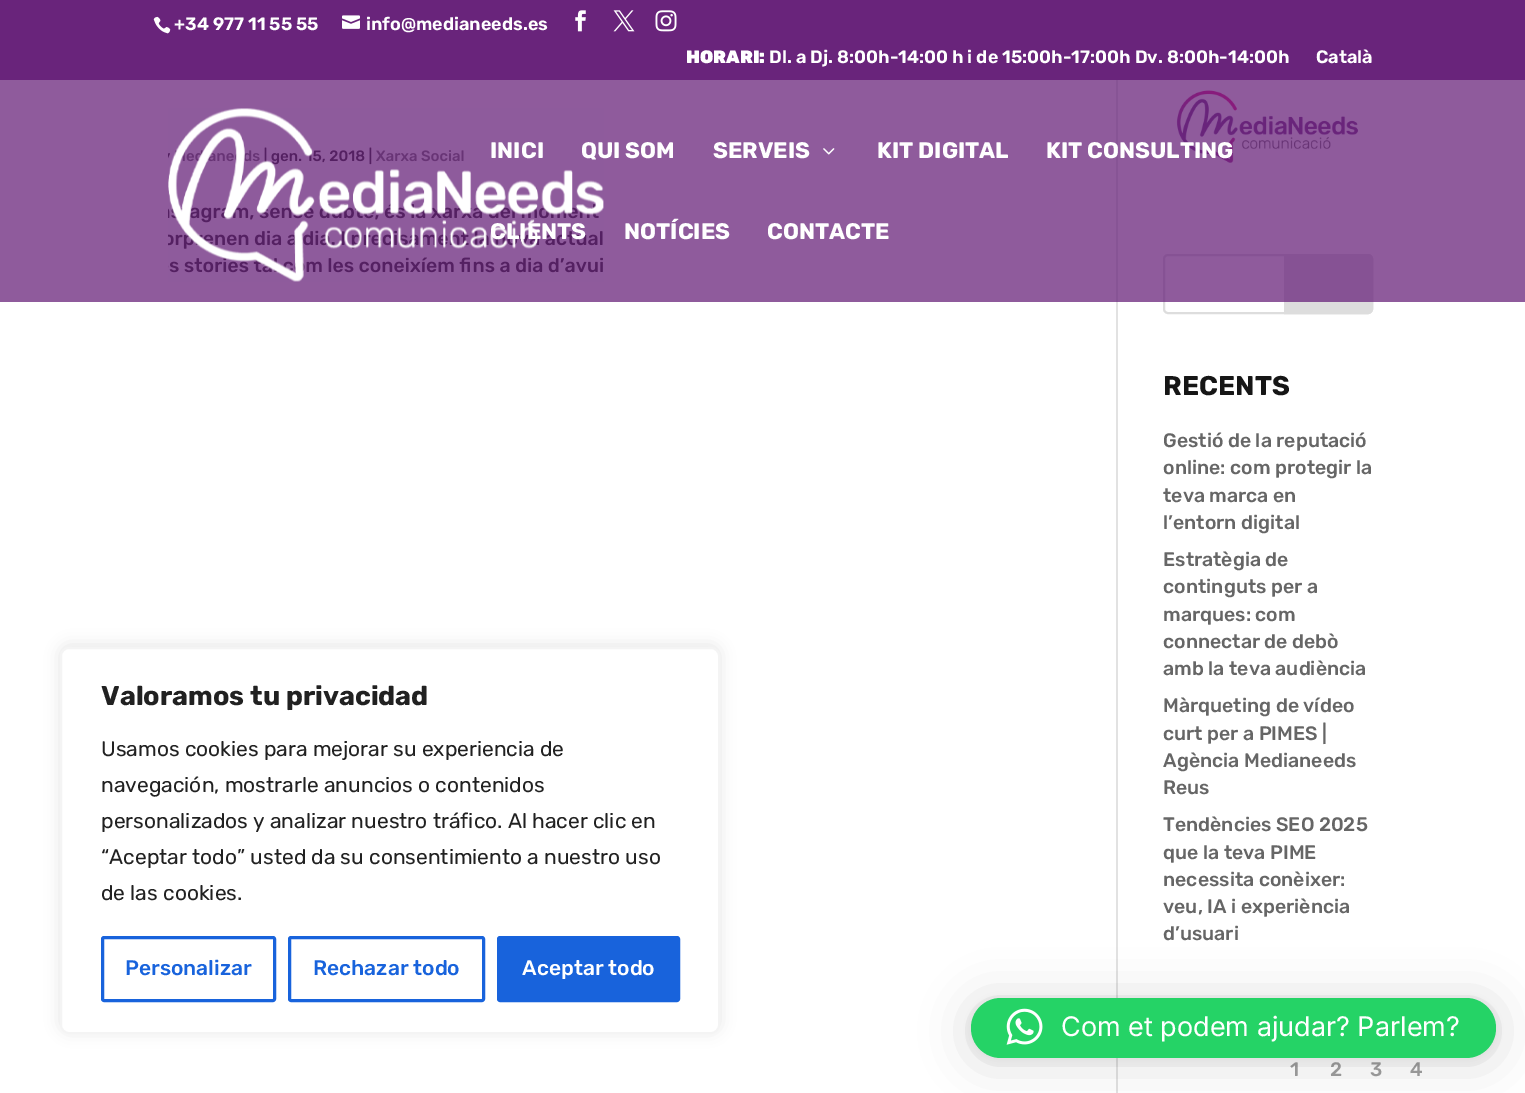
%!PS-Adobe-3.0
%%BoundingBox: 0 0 1525 1093
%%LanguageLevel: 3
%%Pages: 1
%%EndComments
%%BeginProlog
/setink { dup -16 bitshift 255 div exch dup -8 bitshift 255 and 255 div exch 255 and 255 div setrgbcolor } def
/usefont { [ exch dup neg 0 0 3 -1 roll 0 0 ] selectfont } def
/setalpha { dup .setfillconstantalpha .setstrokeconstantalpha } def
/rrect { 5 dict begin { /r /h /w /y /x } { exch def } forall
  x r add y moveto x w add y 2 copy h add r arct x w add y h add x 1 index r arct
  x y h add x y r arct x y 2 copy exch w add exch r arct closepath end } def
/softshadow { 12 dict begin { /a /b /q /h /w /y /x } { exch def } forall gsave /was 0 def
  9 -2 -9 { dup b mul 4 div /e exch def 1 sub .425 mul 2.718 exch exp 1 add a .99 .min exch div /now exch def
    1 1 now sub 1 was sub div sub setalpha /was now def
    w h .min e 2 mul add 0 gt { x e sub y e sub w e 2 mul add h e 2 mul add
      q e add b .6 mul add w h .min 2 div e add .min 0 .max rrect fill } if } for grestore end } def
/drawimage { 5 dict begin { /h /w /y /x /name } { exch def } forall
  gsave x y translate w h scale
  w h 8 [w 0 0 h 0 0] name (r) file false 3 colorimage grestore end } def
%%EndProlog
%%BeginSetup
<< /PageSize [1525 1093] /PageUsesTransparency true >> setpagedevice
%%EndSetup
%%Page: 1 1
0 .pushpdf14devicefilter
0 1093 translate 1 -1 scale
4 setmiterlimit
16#FFFFFF setink
0 0 1525 1093 rectfill
16#69247B setink
0 0 1525 80 rectfill
(img1.raw) 153 16 18 18 drawimage
/Rubik-SemiBold 18 usefont
16#FFFFFF setink
174 30 moveto (+34 977 11 55 55) show
(img2.raw) 342 15 18 14 drawimage
366 30 moveto (info@medianeeds.es) show
(img3.raw) 575 10 11 22 drawimage
(img4.raw) 613 10 22 22 drawimage
(img5.raw) 655 10 22 22 drawimage
/Rubik-Black 18 usefont
686 63 moveto (HORARI:) show
/Rubik-SemiBold 18 usefont
769 63 moveto (Dl. a Dj. 8:00h-14:00 h i de 15:00h-17:00h Dv. 8:00h-14:00h) show
1316 63 moveto (Català) show
16#E2E2E2 setink
1116 80 2 1013 rectfill
(img8.raw) 1176 90 183 73 drawimage
16#DDDDDD setink
2 setlinewidth
1164 255 208 58 4 rrect stroke
1285 255 moveto 1368 255 lineto 1370 255 1372 257 1372 259 curveto 1372 309 lineto 1372 311 1370 313 1368 313 curveto 1285 313 lineto closepath gsave fill grestore
stroke
0.75 setalpha
16#69247B setink
0 80 1525 222 rectfill
1 setalpha
(img6.raw) 168 108 436 174 drawimage
/Rubik-Bold 22.5 usefont
16#FFFFFF setink
[
    [(INICI) 490 158]
    [(QUI SOM) 581 158]
    [(SERVEIS) 713 158]
] { aload pop moveto show } forall
(img7.raw) 823 148 12 7 drawimage
[
    [(KIT DIGITAL) 877 158]
    [(KIT CONSULTING) 1046 158]
    [(CLIENTS) 490 239]
    [(NOTÍCIES) 624 239]
    [(CONTACTE) 767 239]
] { aload pop moveto show } forall
/Rubik-Bold 27 usefont
16#161616 setink
1163 395 moveto (RECENTS) show
/Rubik-Medium 19.5 usefont
16#666666 setink
[
    [(Gestió de la reputació) 1163 447]
    [(online: com protegir la) 1163 474]
    [(teva marca en) 1163 502]
    [(l’entorn digital) 1163 529]
    [(Estratègia de) 1163 566]
    [(continguts per a) 1163 593]
    [(marques: com) 1163 621]
    [(connectar de debò) 1163 648]
    [(amb la teva audiència) 1163 675]
    [(Màrqueting de vídeo) 1163 712]
    [(curt per a PIMES |) 1163 740]
    [(Agència Medianeeds) 1163 767]
    [(Reus) 1163 794]
    [(Tendències SEO 2025) 1163 831]
    [(que la teva PIME) 1163 859]
    [(necessita conèixer:) 1163 886]
    [(veu, IA i experiència) 1163 913]
    [(d’usuari) 1163 940]
] { aload pop moveto show } forall
16#9F9F9F setink
[
    [(1) 1290 1076]
    [(2) 1330 1076]
    [(3) 1370 1076]
    [(4) 1410 1076]
] { aload pop moveto show } forall
16#ACABAB setink
60 645 660 387 9 7.5 0.3 softshadow
16#FFFFFF setink
61 648 658 385 8 rrect gsave fill grestore
16#F4F4F4 setink
stroke
/Rubik-Bold 27 usefont
16#212121 setink
101 705 moveto (Valoramos tu privacidad) show
/Rubik-Regular 21 usefont
[
    [(Usamos cookies para mejorar su experiencia de) 101 756]
    [(navegación, mostrarle anuncios o contenidos) 101 792]
    [(personalizados y analizar nuestro tráfico. Al hacer clic en) 101 828]
    [(“Aceptar todo” usted da su consentimiento a nuestro uso) 101 864]
    [(de las cookies.) 101 900]
] { aload pop moveto show } forall
16#1863DC setink
3 setlinewidth
102.5 937.5 172 63 1.5 rrect stroke
/Rubik-Medium 21 usefont
125 975 moveto (Personalizar) show
289.5 937.5 194 63 1.5 rrect stroke
313 975 moveto (Rechazar todo) show
498.5 937.5 180 63 1.5 rrect gsave fill grestore
stroke
16#FFFFFF setink
522 975 moveto (Aceptar todo) show
16#000000 setink
971 1001 525 60 30 24 0.16 softshadow
971 999 525 60 30 4.5 0.06 softshadow
16#25D366 setink
971 998 525 60 30 rrect fill
(img9.raw) 1006 1008 37 37 drawimage
/Inter-Regular 27 usefont
16#FFFFFF setink
1061 1036 moveto (Com et podem ajudar? Parlem?) show
.poppdf14devicefilter showpage
%%EOF
